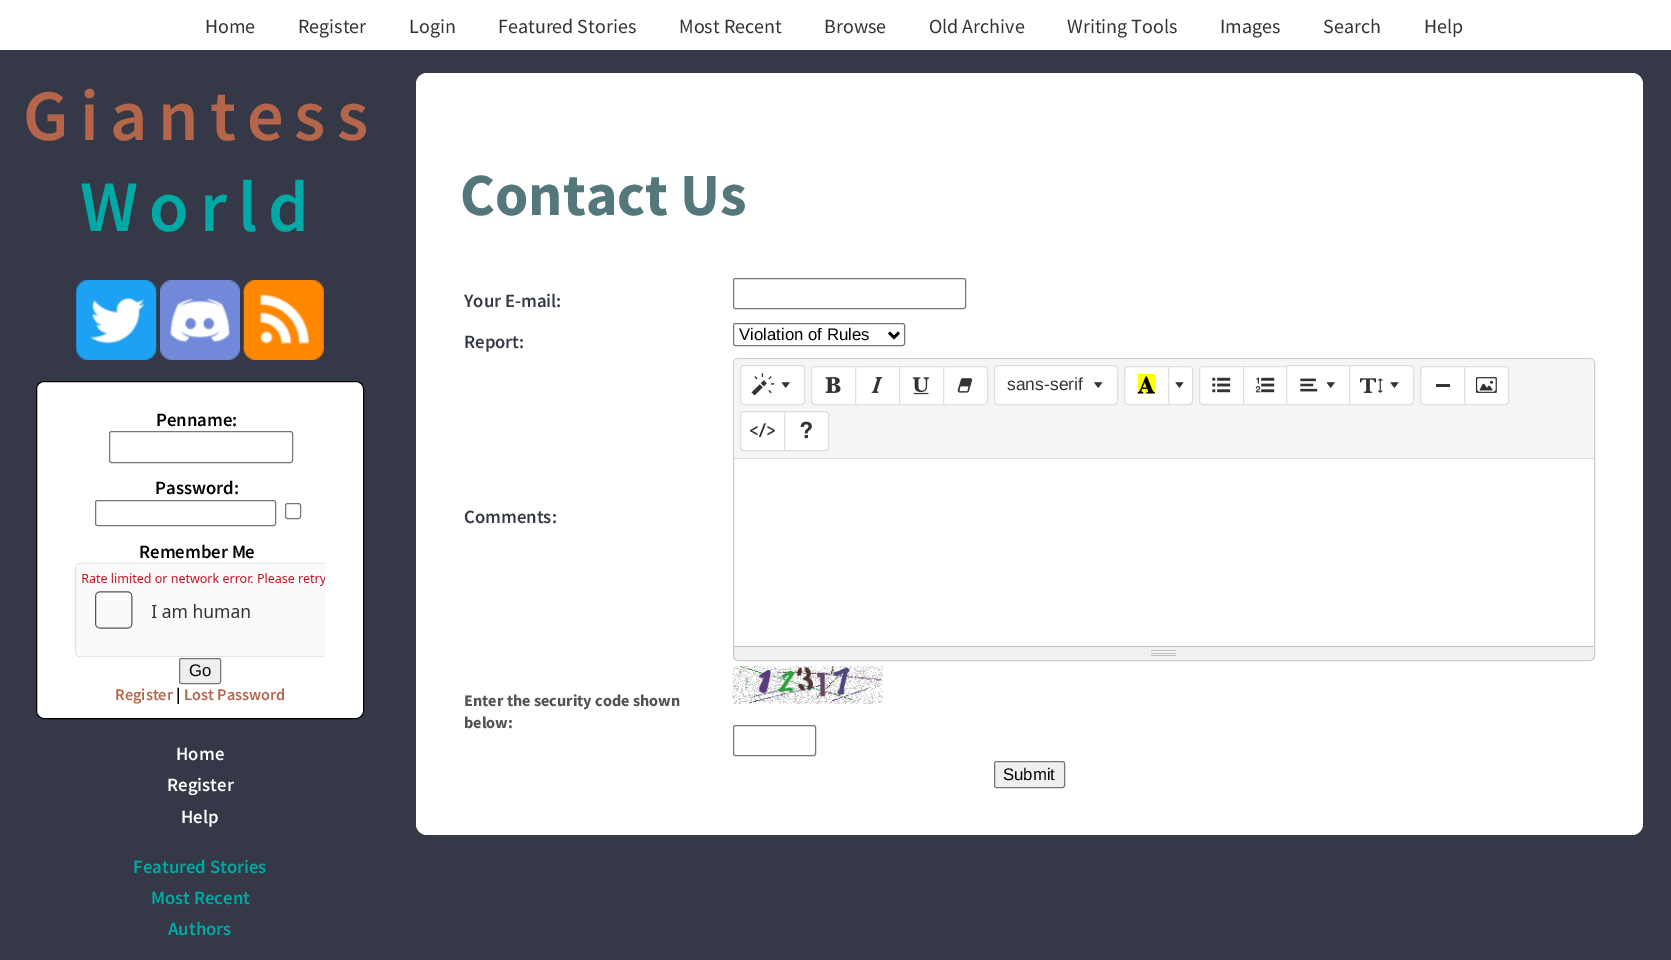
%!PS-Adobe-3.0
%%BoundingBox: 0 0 1671 960
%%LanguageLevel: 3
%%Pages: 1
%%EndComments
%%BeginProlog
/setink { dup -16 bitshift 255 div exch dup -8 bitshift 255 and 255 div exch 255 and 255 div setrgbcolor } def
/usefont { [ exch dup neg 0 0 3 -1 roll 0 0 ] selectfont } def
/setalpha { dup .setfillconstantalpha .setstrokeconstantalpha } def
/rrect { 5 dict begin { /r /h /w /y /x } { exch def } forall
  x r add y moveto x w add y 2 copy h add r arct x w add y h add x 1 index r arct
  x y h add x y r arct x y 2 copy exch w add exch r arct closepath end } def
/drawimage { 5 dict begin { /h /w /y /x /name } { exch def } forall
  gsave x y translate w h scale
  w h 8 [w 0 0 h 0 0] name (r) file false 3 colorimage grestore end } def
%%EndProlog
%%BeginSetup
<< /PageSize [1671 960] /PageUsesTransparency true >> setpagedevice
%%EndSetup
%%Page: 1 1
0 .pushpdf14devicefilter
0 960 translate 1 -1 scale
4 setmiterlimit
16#FFFFFF setink
0 0 1671 960 rectfill
/SourceSansPro-Regular 20 usefont
16#333333 setink
[
    [(Home) 205 33]
    [(Register) 298 33]
    [(Login) 409 33]
    [(Featured Stories) 498 33]
    [(Most Recent) 679 33]
    [(Browse) 824 33]
    [(Old Archive) 929 33]
    [(Writing Tools) 1067 33]
    [(Images) 1220 33]
    [(Search) 1323 33]
    [(Help) 1424 33]
] { aload pop moveto show } forall
16#353846 setink
0 50 1671 910 rectfill
/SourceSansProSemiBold-SemiBold 72.5 usefont
16#B4654A setink
23 140 moveto 11 0 (Giantess) ashow
16#00A9A5 setink
80 231 moveto 11 0 (World) ashow
(img1.raw) 76 280 81 80 drawimage
(img2.raw) 160 280 80 80 drawimage
(img3.raw) 243 280 81 80 drawimage
16#FFFFFF setink
36.5 381.5 327 337 7.5 rrect gsave fill grestore
16#000000 setink
stroke
/SourceSansProSemiBold-SemiBold 18.75 usefont
156 426 moveto (Penname:) show
16#767676 setink
109.5 431.5 183 31 2 rrect stroke
16#000000 setink
155 494 moveto (Password:) show
16#767676 setink
95.5 500.5 180 25 2 rrect stroke
285.5 503.5 15 15 2 rrect stroke
16#000000 setink
139 558 moveto (Remember Me) show
(img4.raw) 75 563 250 94 drawimage
16#EFEFEF setink
179.5 658.5 41 25 2 rrect gsave fill grestore
16#767676 setink
stroke
/LiberationSans-Regular 16.75 usefont
16#000000 setink
189 676 moveto (Go) show
/SourceSansProSemiBold-SemiBold 16.25 usefont
16#B4654A setink
115 700 moveto (Register) show
/SourceSansPro-Bold 16.25 usefont
16#000000 setink
176 700 moveto (|) show
/SourceSansProSemiBold-SemiBold 16.25 usefont
16#B4654A setink
184 700 moveto (Lost Password) show
/SourceSansProSemiBold-SemiBold 18.75 usefont
16#FFFFFF setink
[
    [(Home) 176 760]
    [(Register) 167 791]
    [(Help) 181 823]
] { aload pop moveto show } forall
16#00A9A5 setink
[
    [(Featured Stories) 133 873]
    [(Most Recent) 151 904]
    [(Authors) 168 935]
] { aload pop moveto show } forall
16#FFFFFF setink
416 73 1227 762 11 rrect fill
/SourceSansPro-Bold 60 usefont
16#53777A setink
460 215 moveto (Contact Us) show
/SourceSansProSemiBold-SemiBold 18.75 usefont
16#353846 setink
464 307 moveto (Your E-mail:) show
16#767676 setink
733.5 278.5 232 30 2 rrect stroke
16#353846 setink
464 348 moveto (Report:) show
16#767676 setink
733.5 323.5 171 22 2 rrect stroke
16#000000 setink
2.5 setlinewidth
889 332.5 moveto 894 337.5 lineto 899 332.5 lineto stroke
/LiberationSans-Regular 16.75 usefont
739 340 moveto (Violation of Rules) show
16#CCCCCC setink
1 setlinewidth
733.5 358.5 861 302 4.5 rrect stroke
16#F5F5F5 setink
738 359 moveto 1590 359 lineto 1592 359 1594 361 1594 363 curveto 1594 459 lineto 734 459 lineto 734 363 lineto 734 361 736 359 738 359 curveto closepath fill
16#DDDDDD setink
734 458 860 1 rectfill
16#FFFFFF setink
740.5 365.5 64 39 3.5 rrect gsave fill grestore
16#DAE0E5 setink
stroke
(img5.raw) 751 373 24 23 drawimage
(img6.raw) 781 382 9 6 drawimage
16#FFFFFF setink
815 366.5 moveto 855.5 366.5 lineto 855.5 404.5 lineto 815 404.5 lineto 813 404.5 811.5 403 811.5 401 curveto 811.5 370 lineto 811.5 368 813 366.5 815 366.5 curveto closepath gsave fill grestore
16#DAE0E5 setink
stroke
(img7.raw) 825 377 16 16 drawimage
16#FFFFFF setink
855.5 366.5 moveto 899.5 366.5 lineto 899.5 404.5 lineto 855.5 404.5 lineto closepath gsave fill grestore
16#DAE0E5 setink
stroke
(img8.raw) 871 377 12 16 drawimage
16#FFFFFF setink
899.5 366.5 moveto 943.5 366.5 lineto 943.5 404.5 lineto 899.5 404.5 lineto closepath gsave fill grestore
16#DAE0E5 setink
stroke
(img9.raw) 912 377 17 18 drawimage
16#FFFFFF setink
943.5 366.5 moveto 984 366.5 lineto 986 366.5 987.5 368 987.5 370 curveto 987.5 401 lineto 987.5 403 986 404.5 984 404.5 curveto 943.5 404.5 lineto closepath gsave fill grestore
16#DAE0E5 setink
stroke
(img10.raw) 957 378 16 15 drawimage
16#FFFFFF setink
994.5 365.5 123 39 3.5 rrect gsave fill grestore
16#DAE0E5 setink
stroke
/LiberationSans-Regular 17.5 usefont
16#333333 setink
1007 390 moveto (sans-serif) show
(img11.raw) 1094 382 9 6 drawimage
16#FFFFFF setink
1128 366.5 moveto 1168.5 366.5 lineto 1168.5 404.5 lineto 1128 404.5 lineto 1126 404.5 1124.5 403 1124.5 401 curveto 1124.5 370 lineto 1124.5 368 1126 366.5 1128 366.5 curveto closepath gsave fill grestore
16#DAE0E5 setink
stroke
16#FFFF00 setink
1138 374 17 20 rectfill
(img12.raw) 1137 376 18 18 drawimage
16#FFFFFF setink
1168.5 366.5 moveto 1189 366.5 lineto 1191 366.5 1192.5 368 1192.5 370 curveto 1192.5 401 lineto 1192.5 403 1191 404.5 1189 404.5 curveto 1168.5 404.5 lineto closepath gsave fill grestore
16#DAE0E5 setink
stroke
(img13.raw) 1175 382 9 6 drawimage
16#FFFFFF setink
1203 366.5 moveto 1243.5 366.5 lineto 1243.5 404.5 lineto 1203 404.5 lineto 1201 404.5 1199.5 403 1199.5 401 curveto 1199.5 370 lineto 1199.5 368 1201 366.5 1203 366.5 curveto closepath gsave fill grestore
16#DAE0E5 setink
stroke
(img14.raw) 1212 377 19 16 drawimage
16#FFFFFF setink
1244 367 42 37 rectfill
16#DAE0E5 setink
1243.5 366.5 44 38 rectstroke
(img15.raw) 1255 377 20 16 drawimage
16#FFFFFF setink
1286.5 365.5 moveto 1349.5 365.5 lineto 1349.5 404.5 lineto 1286.5 404.5 lineto closepath gsave fill grestore
16#DAE0E5 setink
stroke
(img16.raw) 1300 378 18 14 drawimage
(img6.raw) 1326 382 9 6 drawimage
16#FFFFFF setink
1349.5 365.5 moveto 1410 365.5 lineto 1412 365.5 1413.5 367 1413.5 369 curveto 1413.5 401 lineto 1413.5 403 1412 404.5 1410 404.5 curveto 1349.5 404.5 lineto closepath gsave fill grestore
16#DAE0E5 setink
stroke
(img17.raw) 1360 378 23 15 drawimage
(img13.raw) 1390 382 9 6 drawimage
16#FFFFFF setink
1424 366.5 moveto 1464.5 366.5 lineto 1464.5 404.5 lineto 1424 404.5 lineto 1422 404.5 1420.5 403 1420.5 401 curveto 1420.5 370 lineto 1420.5 368 1422 366.5 1424 366.5 curveto closepath gsave fill grestore
16#DAE0E5 setink
stroke
16#333333 setink
1436 384 14 3 rectfill
16#FFFFFF setink
1464.5 366.5 moveto 1505 366.5 lineto 1507 366.5 1508.5 368 1508.5 370 curveto 1508.5 401 lineto 1508.5 403 1507 404.5 1505 404.5 curveto 1464.5 404.5 lineto closepath gsave fill grestore
16#DAE0E5 setink
stroke
(img18.raw) 1475 377 22 16 drawimage
16#FFFFFF setink
744 411.5 moveto 784.5 411.5 lineto 784.5 450.5 lineto 744 450.5 lineto 742 450.5 740.5 449 740.5 447 curveto 740.5 415 lineto 740.5 413 742 411.5 744 411.5 curveto closepath gsave fill grestore
16#DAE0E5 setink
stroke
(img19.raw) 750 423 25 15 drawimage
16#FFFFFF setink
784.5 411.5 moveto 825 411.5 lineto 827 411.5 828.5 413 828.5 415 curveto 828.5 447 lineto 828.5 449 827 450.5 825 450.5 curveto 784.5 450.5 lineto closepath gsave fill grestore
16#DAE0E5 setink
stroke
(img20.raw) 800 421 12 18 drawimage
0.11 setalpha
16#808080 setink
734 646 moveto 1594 646 lineto 1594 655 lineto 1594 658 1592 660 1589 660 curveto 739 660 lineto 736 660 734 658 734 655 curveto closepath fill
1 setalpha
[
    [734 646 860 1 16#C1C1C1]
    [1151 650 25 1 16#C1C1C1]
    [1151 653 25 1 16#C1C1C1]
    [1151 655 25 1 16#C1C1C1]
] { aload pop setink rectfill } forall
/SourceSansProSemiBold-SemiBold 18.75 usefont
16#353846 setink
464 523 moveto (Comments:) show
/SourceSansPro-Bold 16.25 usefont
16#535353 setink
464 706 moveto (Enter the security code shown) show
464 728 moveto (below:) show
(img21.raw) 732 666 151 38 drawimage
16#767676 setink
733.5 725.5 82 30 2 rrect stroke
16#EFEFEF setink
994.5 761.5 70 26 2 rrect gsave fill grestore
16#767676 setink
stroke
/LiberationSans-Regular 16.75 usefont
16#000000 setink
1003 780 moveto (Submit) show
.poppdf14devicefilter showpage
%%EOF
